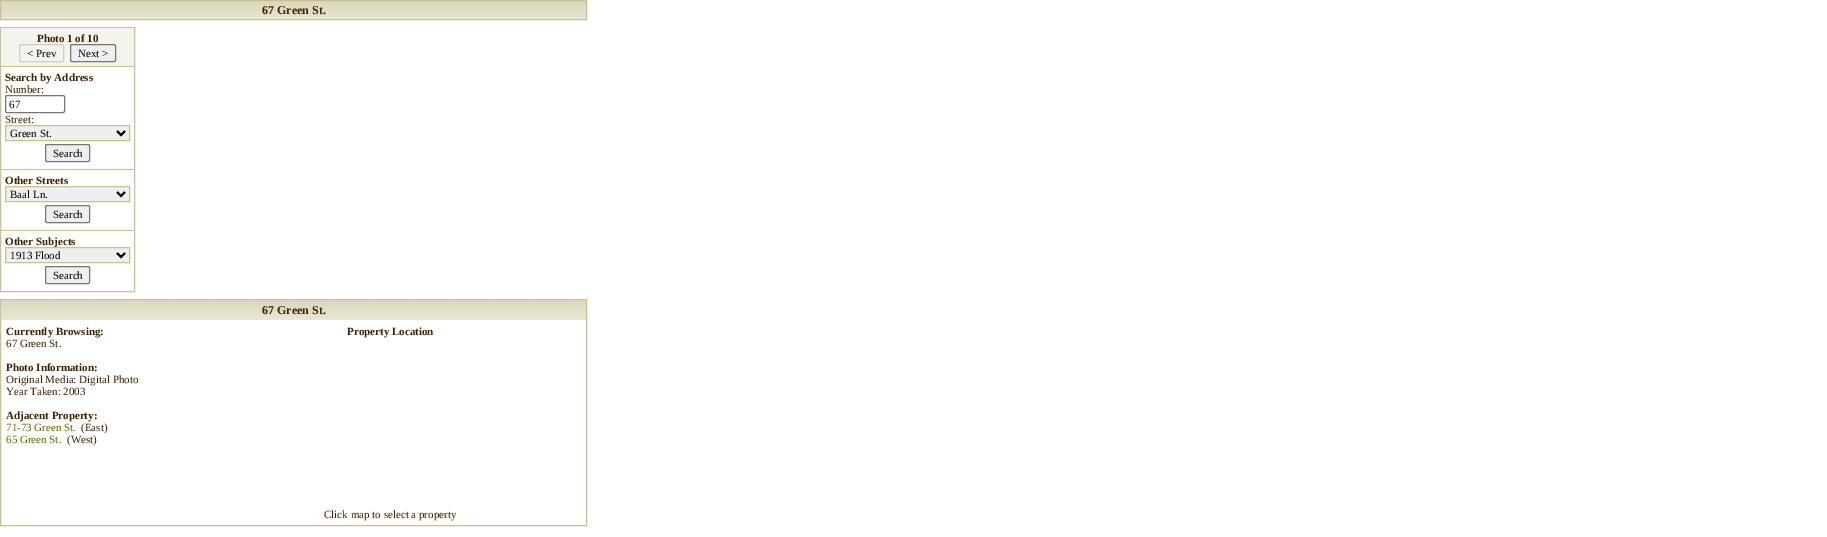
%!PS-Adobe-3.0
%%BoundingBox: 0 0 1827 537
%%LanguageLevel: 3
%%Pages: 1
%%EndComments
%%BeginProlog
/setink { dup -16 bitshift 255 div exch dup -8 bitshift 255 and 255 div exch 255 and 255 div setrgbcolor } def
/usefont { [ exch dup neg 0 0 3 -1 roll 0 0 ] selectfont } def
/rrect { 5 dict begin { /r /h /w /y /x } { exch def } forall
  x r add y moveto x w add y 2 copy h add r arct x w add y h add x 1 index r arct
  x y h add x y r arct x y 2 copy exch w add exch r arct closepath end } def
/drawimage { 5 dict begin { /h /w /y /x /name } { exch def } forall
  gsave x y translate w h scale
  w h 8 [w 0 0 h 0 0] name (r) file false 3 colorimage grestore end } def
%%EndProlog
%%BeginSetup
<< /PageSize [1827 537] >> setpagedevice
%%EndSetup
%%Page: 1 1
0 537 translate 1 -1 scale
4 setmiterlimit
16#FFFFFF setink
0 0 1827 537 rectfill
(img1.raw) 1 1 585 18 drawimage
16#C7C290 setink
0.5 0.5 586 19 rectstroke
/LiberationSerif-Bold 12 usefont
16#402000 setink
262 14 moveto (67 Green St.) show
16#C7C290 setink
0.5 27.5 134 264 rectstroke
16#F5F4EC setink
1 28 133 38 rectfill
/LiberationSerif-Bold 11 usefont
16#402000 setink
37 42 moveto (Photo 1 of 10) show
16#CECEC9 setink
19.5 44.5 44 17 1.5 rrect stroke
/LiberationSerif-Regular 11 usefont
16#000000 setink
27 57 moveto (< Prev) show
16#EFEFEF setink
70.5 44.5 45 17 1.5 rrect gsave fill grestore
16#767676 setink
stroke
16#000000 setink
78 57 moveto (Next >) show
16#C7C290 setink
1 66 133 1 rectfill
/LiberationSerif-Bold 11 usefont
16#402000 setink
5 81 moveto (Search by Address) show
/LiberationSerif-Regular 11 usefont
5 93 moveto (Number:) show
16#767676 setink
5.5 95.5 59 17 1.5 rrect stroke
16#000000 setink
9 108 moveto (67) show
16#402000 setink
5 123 moveto (Street:) show
16#EFEFEF setink
5.5 125.5 moveto 129.5 125.5 lineto 129.5 140.5 lineto 5.5 140.5 lineto closepath gsave fill grestore
16#C7C290 setink
stroke
16#000000 setink
2 setlinewidth
117 131 moveto 121 135 lineto 125 131 lineto stroke
10 137 moveto (Green St.) show
16#EFEFEF setink
45.5 144.5 44 17 1.5 rrect gsave fill grestore
16#767676 setink
1 setlinewidth
stroke
16#000000 setink
53 157 moveto (Search) show
16#C7C290 setink
1 169 133 1 rectfill
/LiberationSerif-Bold 11 usefont
16#402000 setink
5 184 moveto (Other Streets) show
16#EFEFEF setink
5.5 186.5 moveto 129.5 186.5 lineto 129.5 201.5 lineto 5.5 201.5 lineto closepath gsave fill grestore
16#C7C290 setink
stroke
16#000000 setink
2 setlinewidth
117 192 moveto 121 196 lineto 125 192 lineto stroke
/LiberationSerif-Regular 11 usefont
10 198 moveto (Baal Ln.) show
16#EFEFEF setink
45.5 205.5 44 17 1.5 rrect gsave fill grestore
16#767676 setink
1 setlinewidth
stroke
16#000000 setink
53 218 moveto (Search) show
16#C7C290 setink
1 230 133 1 rectfill
/LiberationSerif-Bold 11 usefont
16#402000 setink
5 245 moveto (Other Subjects) show
16#EFEFEF setink
5.5 247.5 moveto 129.5 247.5 lineto 129.5 262.5 lineto 5.5 262.5 lineto closepath gsave fill grestore
16#C7C290 setink
stroke
16#000000 setink
2 setlinewidth
117 253 moveto 121 257 lineto 125 253 lineto stroke
/LiberationSerif-Regular 11 usefont
10 259 moveto (1913 Flood) show
16#EFEFEF setink
45.5 266.5 44 17 1.5 rrect gsave fill grestore
16#767676 setink
1 setlinewidth
stroke
16#000000 setink
53 279 moveto (Search) show
16#C7C290 setink
0.5 299.5 586 226 rectstroke
(img2.raw) 1 300 585 20 drawimage
/LiberationSerif-Bold 12 usefont
16#402000 setink
262 314 moveto (67 Green St.) show
/LiberationSerif-Bold 11 usefont
6 335 moveto (Currently Browsing:) show
/LiberationSerif-Regular 11 usefont
6 347 moveto (67 Green St.) show
/LiberationSerif-Bold 11 usefont
6 371 moveto (Photo Information:) show
/LiberationSerif-Regular 11 usefont
6 383 moveto (Original Media: Digital Photo) show
6 395 moveto (Year Taken: 2003) show
/LiberationSerif-Bold 11 usefont
6 419 moveto (Adjacent Property:) show
/LiberationSerif-Regular 11 usefont
16#666600 setink
6 431 moveto (71-73 Green St.) show
16#402000 setink
81 431 moveto (\(East\)) show
16#666600 setink
6 443 moveto (65 Green St.) show
16#402000 setink
67 443 moveto (\(West\)) show
/LiberationSerif-Bold 11 usefont
347 335 moveto (Property Location) show
/LiberationSerif-Regular 11 usefont
324 518 moveto (Click map to select a property) show
showpage
%%EOF
